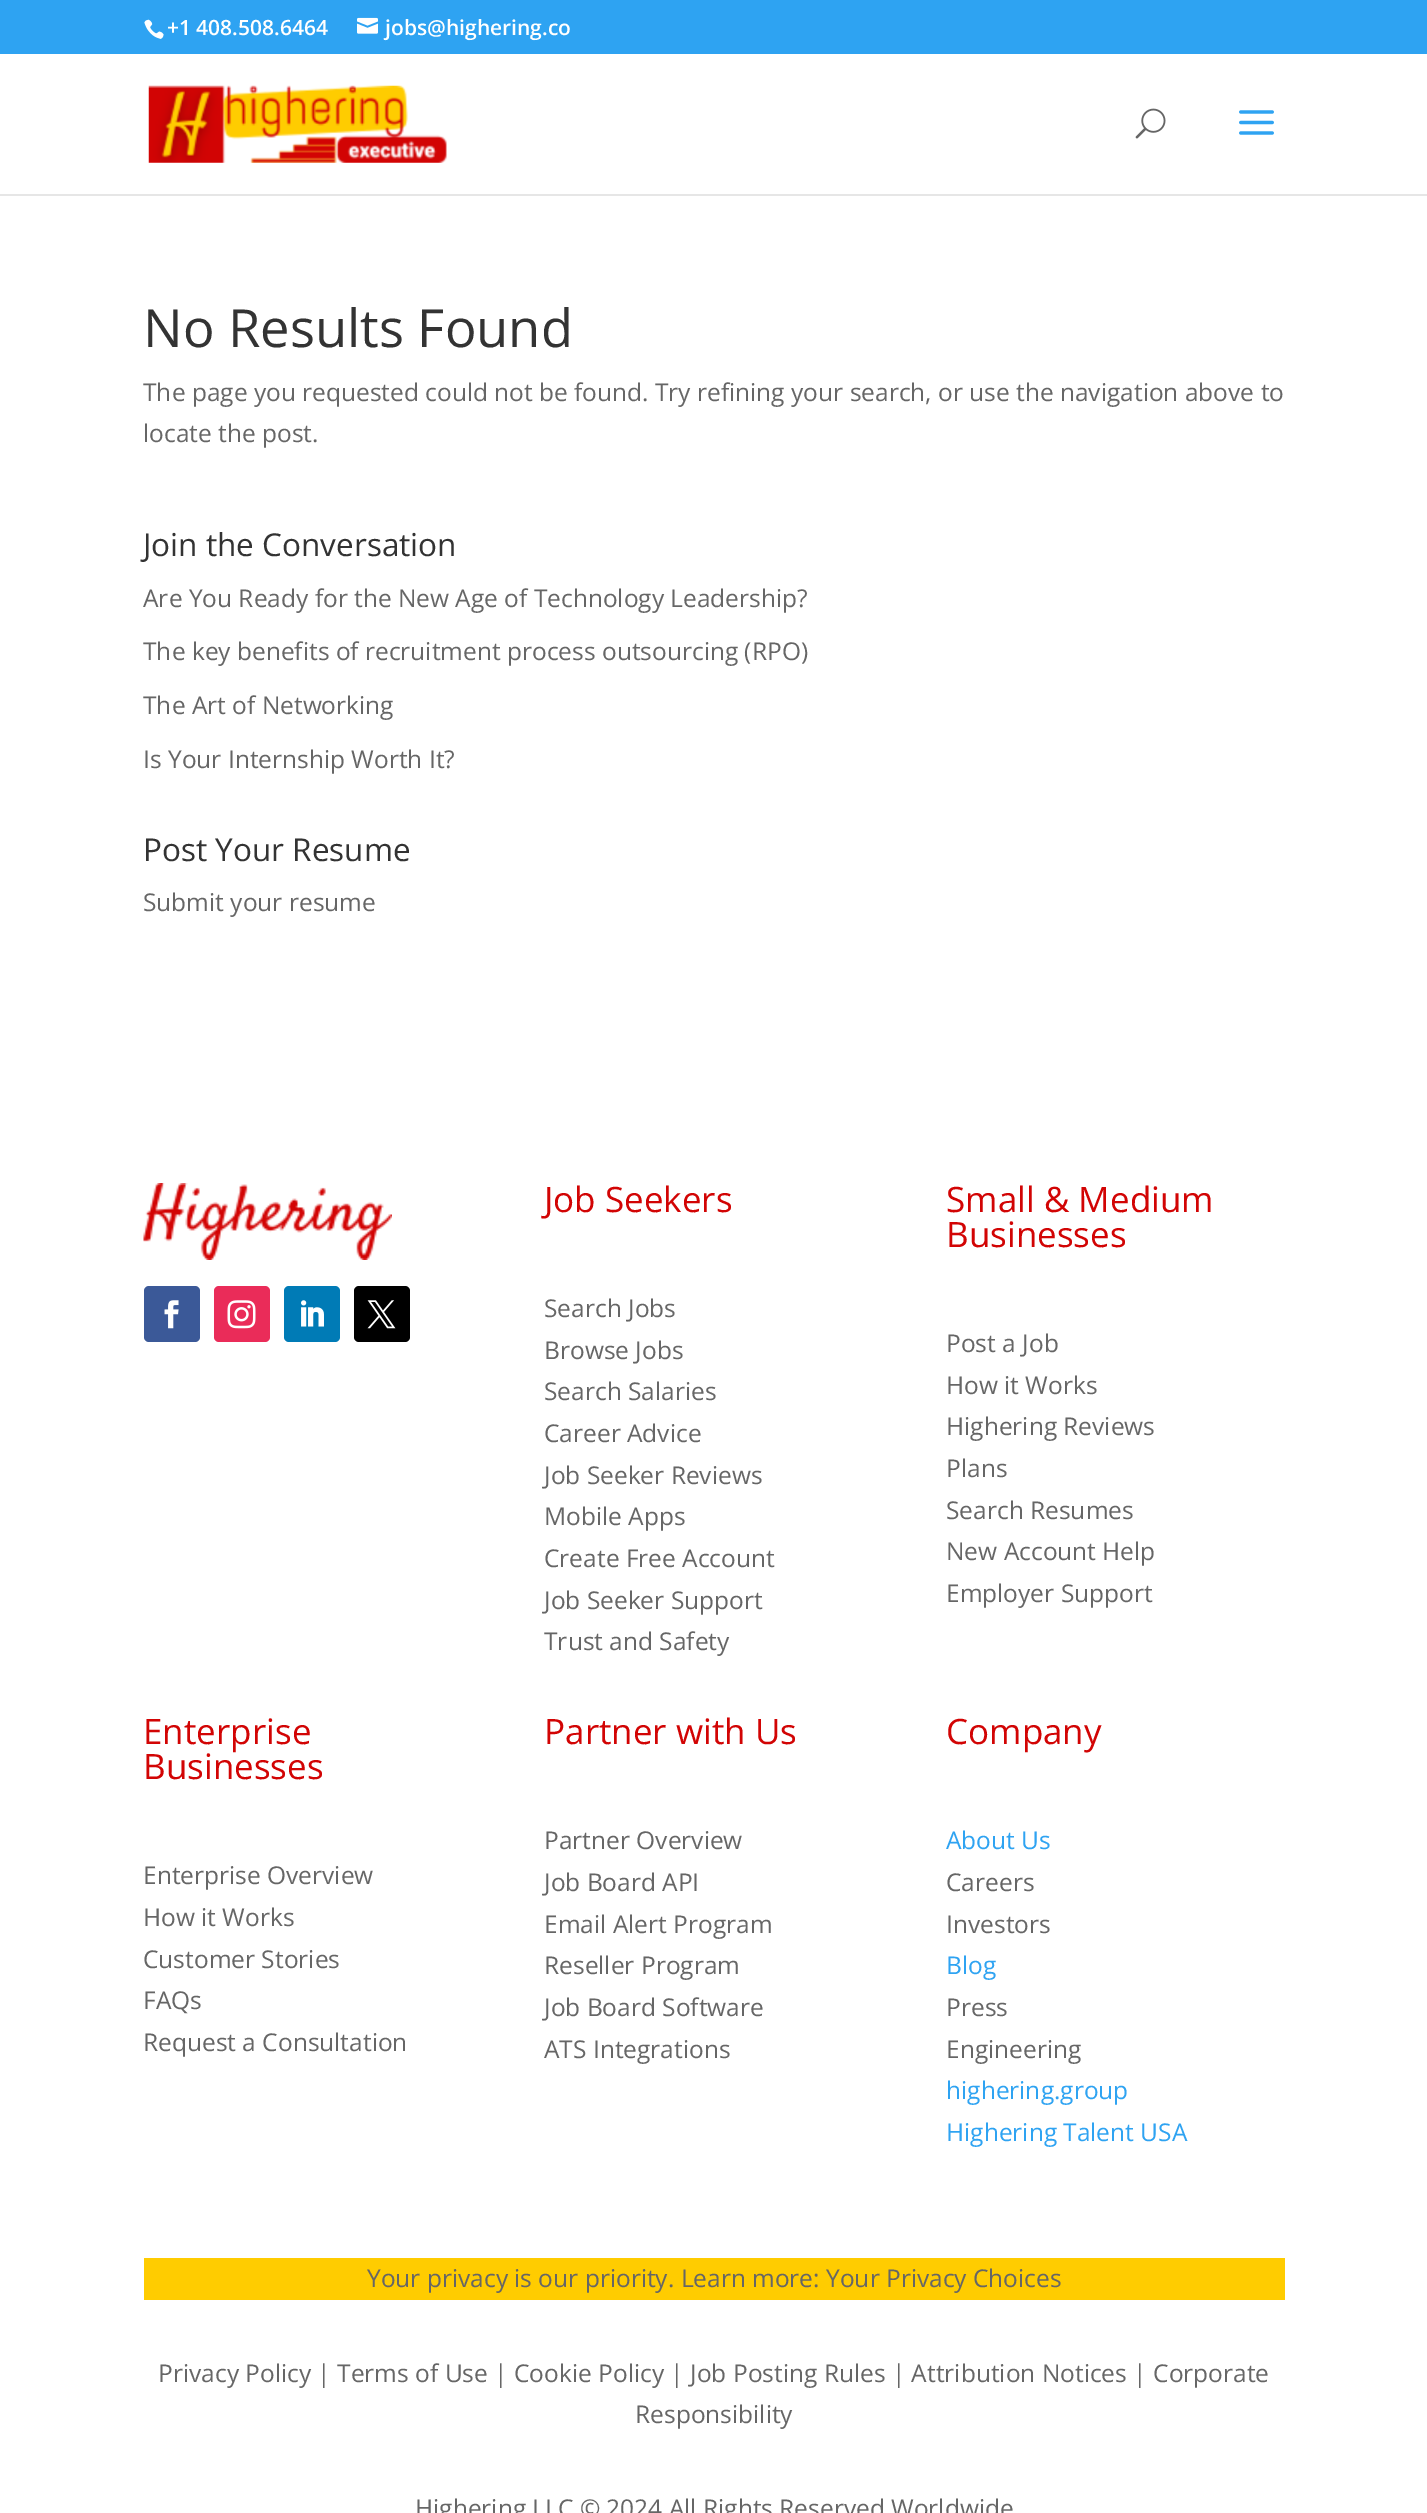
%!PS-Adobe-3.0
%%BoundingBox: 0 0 1427 2513
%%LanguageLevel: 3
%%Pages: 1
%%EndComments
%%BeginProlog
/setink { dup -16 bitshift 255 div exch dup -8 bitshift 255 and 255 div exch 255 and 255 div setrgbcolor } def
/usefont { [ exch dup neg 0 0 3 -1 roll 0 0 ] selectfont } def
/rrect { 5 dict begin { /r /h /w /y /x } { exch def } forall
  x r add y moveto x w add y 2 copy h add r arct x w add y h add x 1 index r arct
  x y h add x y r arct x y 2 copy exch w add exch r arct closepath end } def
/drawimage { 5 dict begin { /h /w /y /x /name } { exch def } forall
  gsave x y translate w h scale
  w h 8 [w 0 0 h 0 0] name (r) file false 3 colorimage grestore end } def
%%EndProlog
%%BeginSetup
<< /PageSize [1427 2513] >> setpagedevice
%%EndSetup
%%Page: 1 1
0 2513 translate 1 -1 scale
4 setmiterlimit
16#FFFFFF setink
0 0 1427 2513 rectfill
16#2EA3F2 setink
0 0 1427 54 rectfill
(img1.raw) 144 19 20 20 drawimage
/OpenSans-SemiBold 21 usefont
16#FFFFFF setink
167 35 moveto (+1 408.508.6464) show
(img2.raw) 357 17 21 17 drawimage
385 35 moveto (jobs@highering.co) show
16#E6E6E6 setink
0 194 1427 2 rectfill
(img3.raw) 148 85 299 78 drawimage
(img4.raw) 1135 108 31 31 drawimage
(img5.raw) 1239 110 35 25 drawimage
/OpenSans-Regular 52.5 usefont
16#333333 setink
143 347 moveto (No Results Found) show
/OpenSans-Regular 24.5 usefont
16#666666 setink
143 401 moveto (The page you requested could not be found. Try refining your search, or use the navigation above to) show
143 442 moveto (locate the post.) show
/OpenSans-Regular 31.5 usefont
16#333333 setink
143 556 moveto (Join the Conversation) show
/OpenSans-Regular 24.5 usefont
16#666666 setink
[
    [(Are You Ready for the New Age of Technology Leadership?) 143 607]
    [(The key benefits of recruitment process outsourcing \(RPO\)) 143 660]
    [(The Art of Networking) 143 714]
    [(Is Your Internship Worth It?) 143 768]
] { aload pop moveto show } forall
/OpenSans-Regular 31.5 usefont
16#333333 setink
143 861 moveto (Post Your Resume) show
/OpenSans-Regular 24.5 usefont
16#666666 setink
143 911 moveto (Submit your resume) show
(img6.raw) 143 1183 249 77 drawimage
16#3B5998 setink
144 1286 56 56 5 rrect fill
(img7.raw) 164 1300 15 29 drawimage
16#EA2C59 setink
214 1286 56 56 5 rrect fill
(img8.raw) 227 1300 29 29 drawimage
16#007BB6 setink
284 1286 56 56 5 rrect fill
(img9.raw) 301 1300 23 27 drawimage
16#000000 setink
354 1286 56 56 5 rrect fill
(img10.raw) 367 1300 29 29 drawimage
/OpenSans-Regular 35 usefont
16#D20404 setink
544 1212 moveto (Job Seekers) show
/OpenSans-Regular 24.5 usefont
16#666666 setink
[
    [(Search Jobs) 544 1317]
    [(Browse Jobs) 544 1359]
    [(Search Salaries) 544 1400]
    [(Career Advice) 544 1442]
    [(Job Seeker Reviews) 544 1484]
    [(Mobile Apps) 544 1525]
    [(Create Free Account) 544 1567]
    [(Job Seeker Support) 544 1609]
    [(Trust and Safety) 544 1650]
] { aload pop moveto show } forall
/OpenSans-Regular 35 usefont
16#D20404 setink
946 1212 moveto (Small & Medium) show
946 1247 moveto (Businesses) show
/OpenSans-Regular 24.5 usefont
16#666666 setink
[
    [(Post a Job) 946 1352]
    [(How it Works) 946 1394]
    [(Highering Reviews) 946 1435]
    [(Plans) 946 1477]
    [(Search Resumes) 946 1519]
    [(New Account Help) 946 1560]
    [(Employer Support) 946 1602]
] { aload pop moveto show } forall
/OpenSans-Regular 35 usefont
16#D20404 setink
143 1744 moveto (Enterprise) show
143 1779 moveto (Businesses) show
/OpenSans-Regular 24.5 usefont
16#666666 setink
[
    [(Enterprise Overview) 143 1884]
    [(How it Works) 143 1926]
    [(Customer Stories) 143 1968]
    [(FAQs) 143 2009]
    [(Request a Consultation) 143 2051]
] { aload pop moveto show } forall
/OpenSans-Regular 35 usefont
16#D20404 setink
544 1744 moveto (Partner with Us) show
/OpenSans-Regular 24.5 usefont
16#666666 setink
[
    [(Partner Overview) 544 1849]
    [(Job Board API) 544 1891]
    [(Email Alert Program) 544 1933]
    [(Reseller Program) 544 1974]
    [(Job Board Software) 544 2016]
    [(ATS Integrations) 544 2058]
] { aload pop moveto show } forall
/OpenSans-Regular 35 usefont
16#D20404 setink
946 1744 moveto (Company) show
/OpenSans-Regular 24.5 usefont
16#2EA3F2 setink
946 1849 moveto (About Us) show
16#666666 setink
946 1891 moveto (Careers) show
946 1933 moveto (Investors) show
16#2EA3F2 setink
946 1974 moveto (Blog) show
16#666666 setink
946 2016 moveto (Press) show
946 2058 moveto (Engineering) show
16#2EA3F2 setink
946 2099 moveto (highering.group) show
946 2141 moveto (Highering Talent USA) show
16#FFCC00 setink
144 2258 1141 42 rectfill
16#666666 setink
[
    [(Your privacy is our priority. Learn more: Your Privacy Choices) 367 2287]
    [(Privacy Policy | Terms of Use | Cookie Policy | Job Posting Rules | Attribution Notices | Corporate) 158 2382]
    [(Responsibility) 635 2423]
    [(Highering LLC © 2024 All Rights Reserved Worldwide) 415 2517]
] { aload pop moveto show } forall
showpage
%%EOF
